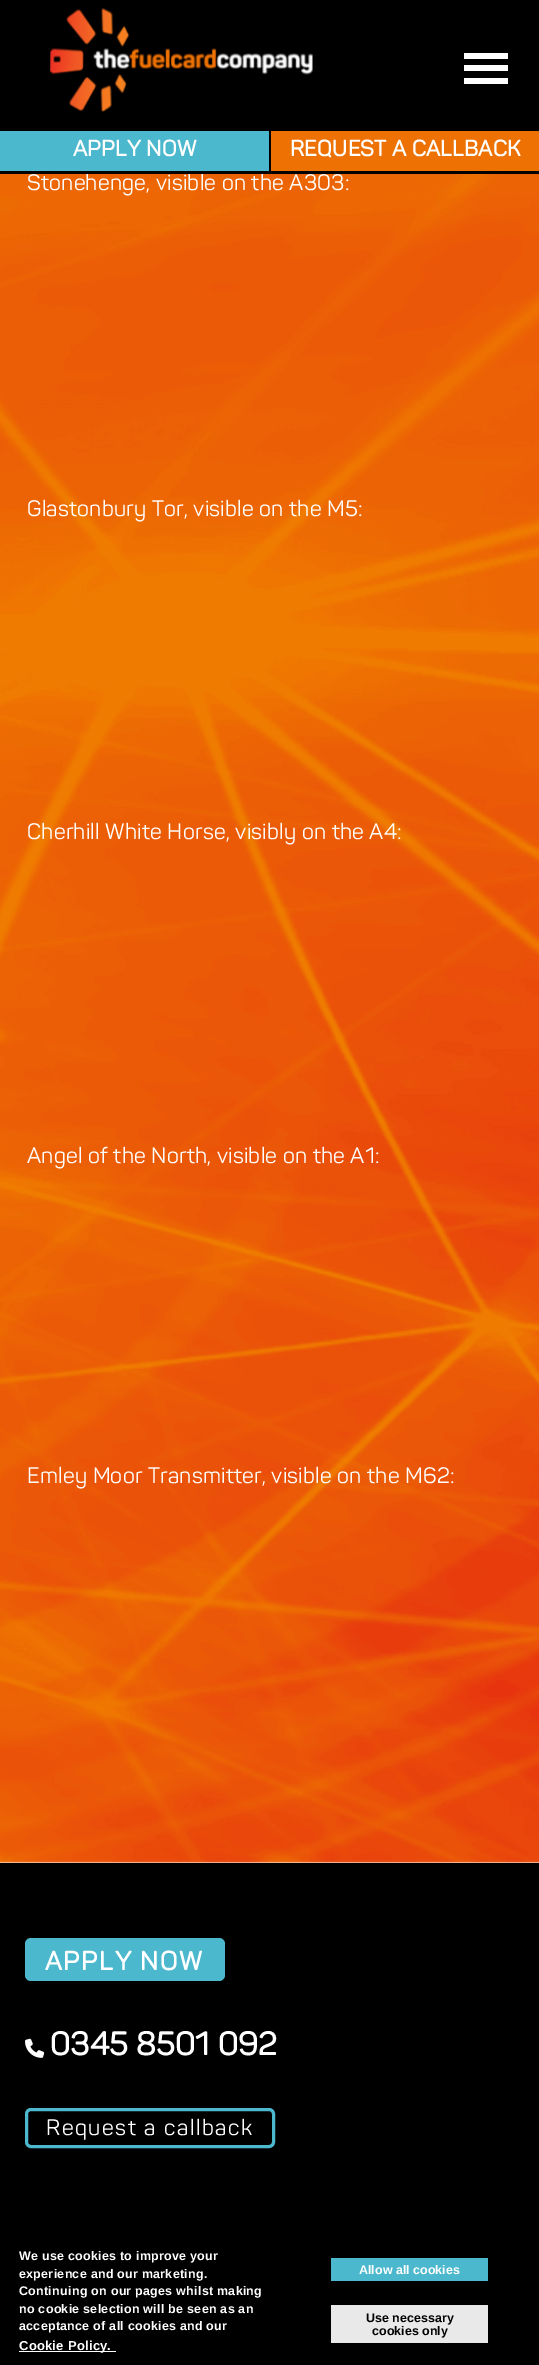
%!PS
<< /PageSize [539 2365] >> setpagedevice
/rgb { 3 { 255 div 3 1 roll } repeat setrgbcolor } def
/font { [ exch dup neg 0 0 3 -1 roll 0 0 ] selectfont } def
/text { moveto show } def
/roundrect { 5 dict begin { /r /h /w /y /x } { exch def } forall
  x r add y moveto x w add y 2 copy h add r arct x w add y h add x 1 index r arct
  x y h add x y r arct x y 2 copy exch w add exch r arct closepath end } def
/picture { 5 dict begin { /h /w /y /x /name } { exch def } forall
  gsave x y translate w h scale
  w h 8 [w 0 0 h 0 0] name (r) file false 3 colorimage grestore end } def
0 2365 translate 1 -1 scale
4 setmiterlimit
255 255 255 rgb
0 0 539 2365 rectfill
(img_02.rgb) 0 174 539 1689 picture
0 0 0 rgb
0 1863 539 502 rectfill
76 184 205 rgb
25 1938 200 43 6 roundrect fill
(img_03.rgb) 25 2038 20 20 picture
3 setlinewidth
26.5 2109.5 247 37 4.5 roundrect stroke
255 255 255 rgb
19 2351 97 1 rectfill
76 184 205 rgb
331 2258 157 23 rectfill
234 233 233 rgb
331 2305 157 38 rectfill
/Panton-Regular 22 font
255 255 255 rgb
27 190 moveto 0.25 0 (Stonehenge, visible on the A303:) ashow
0 0 0 rgb
0 0 539 174 rectfill
255 255 255 rgb
464 53 44 6 rectfill
464 78 44 6 rectfill
464 65 44 6 rectfill
(img_01.rgb) 50 8 263 104 picture
237 113 3 rgb
271 131 268 40 rectfill
/Panton-Bold 22 font
255 255 255 rgb
290 156 moveto 0.25 0 (REQUEST A CALLBACK) ashow
76 184 205 rgb
0 131 269 40 rectfill
255 255 255 rgb
73 156 moveto 0.25 0 (APPLY NOW) ashow
/Panton-Regular 22 font
27 516 moveto 0.25 0 (Glastonbury Tor, visible on the M5:) ashow
27 839 moveto 0.25 0 (Cherhill White Horse, visibly on the A4:) ashow
27 1163 moveto 0.25 0 (Angel of the North, visible on the A1:) ashow
27 1483 moveto 0.25 0 (Emley Moor Transmitter, visible on the M62:) ashow
/Panton-Bold 26 font
45 1970 moveto 1.75 0 (APPLY NOW) ashow
/Panton-Bold 32 font
50 2055 moveto 0.25 0 (0345 8501 092) ashow
/Panton-Regular 22 font
46 2135 moveto 1.6 0 (Request a callback) ashow
/LiberationSans-Bold 12.5 font
19 2260 moveto 0.25 0 (We use cookies to improve your) ashow
19 2278 moveto 0.25 0 (experience and our marketing.) ashow
19 2295 moveto 0.25 0 (Continuing on our pages whilst making) ashow
19 2313 moveto 0.25 0 (no cookie selection will be seen as an) ashow
19 2330 moveto 0.25 0 (acceptance of all cookies and our) ashow
/LiberationSans-Bold 13 font
19 2350 moveto 0.25 0 (Cookie Policy.) ashow
/LiberationSans-Bold 12.5 font
(Allow all cookies) 359 2274 text
0 0 0 rgb
(Use necessary) 366 2322 text
(cookies only) 372 2335 text
showpage
